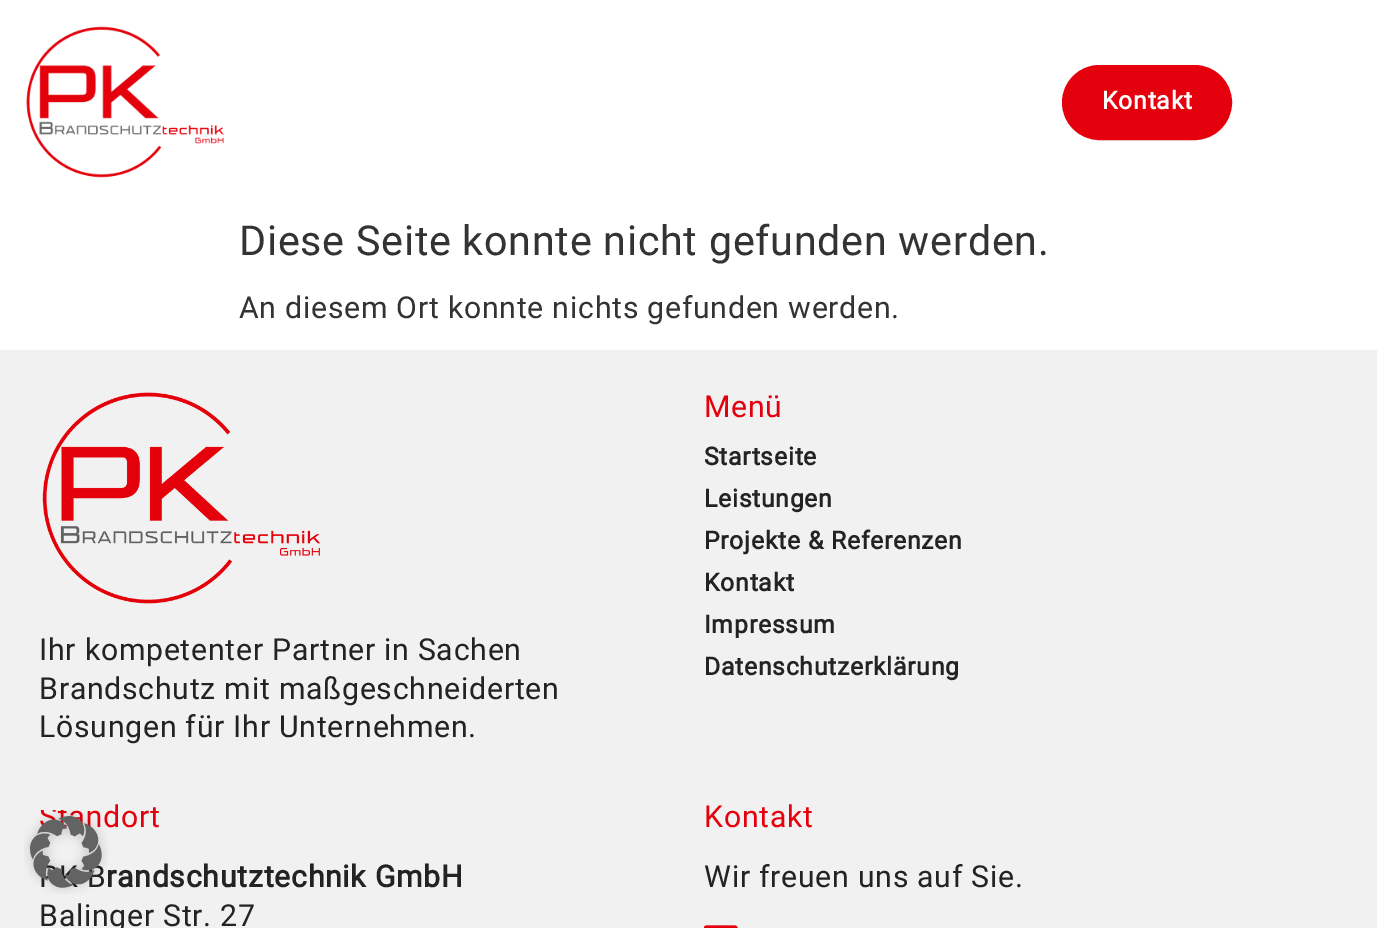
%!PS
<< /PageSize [1377 928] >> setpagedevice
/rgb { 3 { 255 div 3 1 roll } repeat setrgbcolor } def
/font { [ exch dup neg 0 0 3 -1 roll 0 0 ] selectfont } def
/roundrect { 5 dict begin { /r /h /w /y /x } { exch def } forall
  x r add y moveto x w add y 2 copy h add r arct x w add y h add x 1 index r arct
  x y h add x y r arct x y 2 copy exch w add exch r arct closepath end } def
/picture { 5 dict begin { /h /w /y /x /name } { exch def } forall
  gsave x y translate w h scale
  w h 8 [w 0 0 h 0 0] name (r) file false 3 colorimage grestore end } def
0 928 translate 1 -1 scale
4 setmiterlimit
255 255 255 rgb
0 0 1377 928 rectfill
(img_01.rgb) 26 26 198 152 picture
228 0 12 rgb
1063.5 66.5 167 72 36 roundrect gsave fill grestore
3 setlinewidth
stroke
241 241 241 rgb
0 350 1377 578 rectfill
(img_02.rgb) 42 392 279 212 picture
(img_03.rgb) 704 925 34 3 picture
/Roboto-Bold 24.75 font
255 255 255 rgb
1102 109 moveto 0.75 0 (Kontakt) ashow
/Roboto-Regular 41.3 font
51 51 51 rgb
239 255 moveto 0.75 0 (Diese Seite konnte nicht gefunden werden.) ashow
/Roboto-Regular 30.25 font
239 318 moveto 0.75 0 (An diesem Ort konnte nichts gefunden werden.) ashow
35 35 35 rgb
39 660 moveto 0.75 0 (Ihr kompetenter Partner in Sachen) ashow
39 699 moveto 0.75 0 (Brandschutz mit maßgeschneiderten) ashow
39 737 moveto 0.75 0 (Lösungen für Ihr Unternehmen.) ashow
228 0 12 rgb
704 417 moveto 0.75 0 (Menü) ashow
/Roboto-Bold 24.75 font
35 35 35 rgb
704 465 moveto 0.75 0 (Startseite) ashow
704 507 moveto 0.75 0 (Leistungen) ashow
704 549 moveto 0.75 0 (Projekte & Referenzen) ashow
704 591 moveto 0.75 0 (Kontakt) ashow
704 633 moveto 0.75 0 (Impressum) ashow
704 675 moveto 0.75 0 (Datenschutzerklärung) ashow
/Roboto-Regular 30.25 font
228 0 12 rgb
86 827 moveto 0.75 0 (ndort) ashow
/Roboto-Bold 30.25 font
35 35 35 rgb
106 887 moveto 0.75 0 (randschutztechnik GmbH) ashow
/Roboto-Regular 30.25 font
39 926 moveto 0.75 0 (Balinger Str. 27) ashow
228 0 12 rgb
704 827 moveto 0.75 0 (Kontakt) ashow
35 35 35 rgb
704 887 moveto 0.75 0 (Wir freuen uns auf Sie.) ashow
(img_04.rgb) 24 810 84 84 picture
showpage
